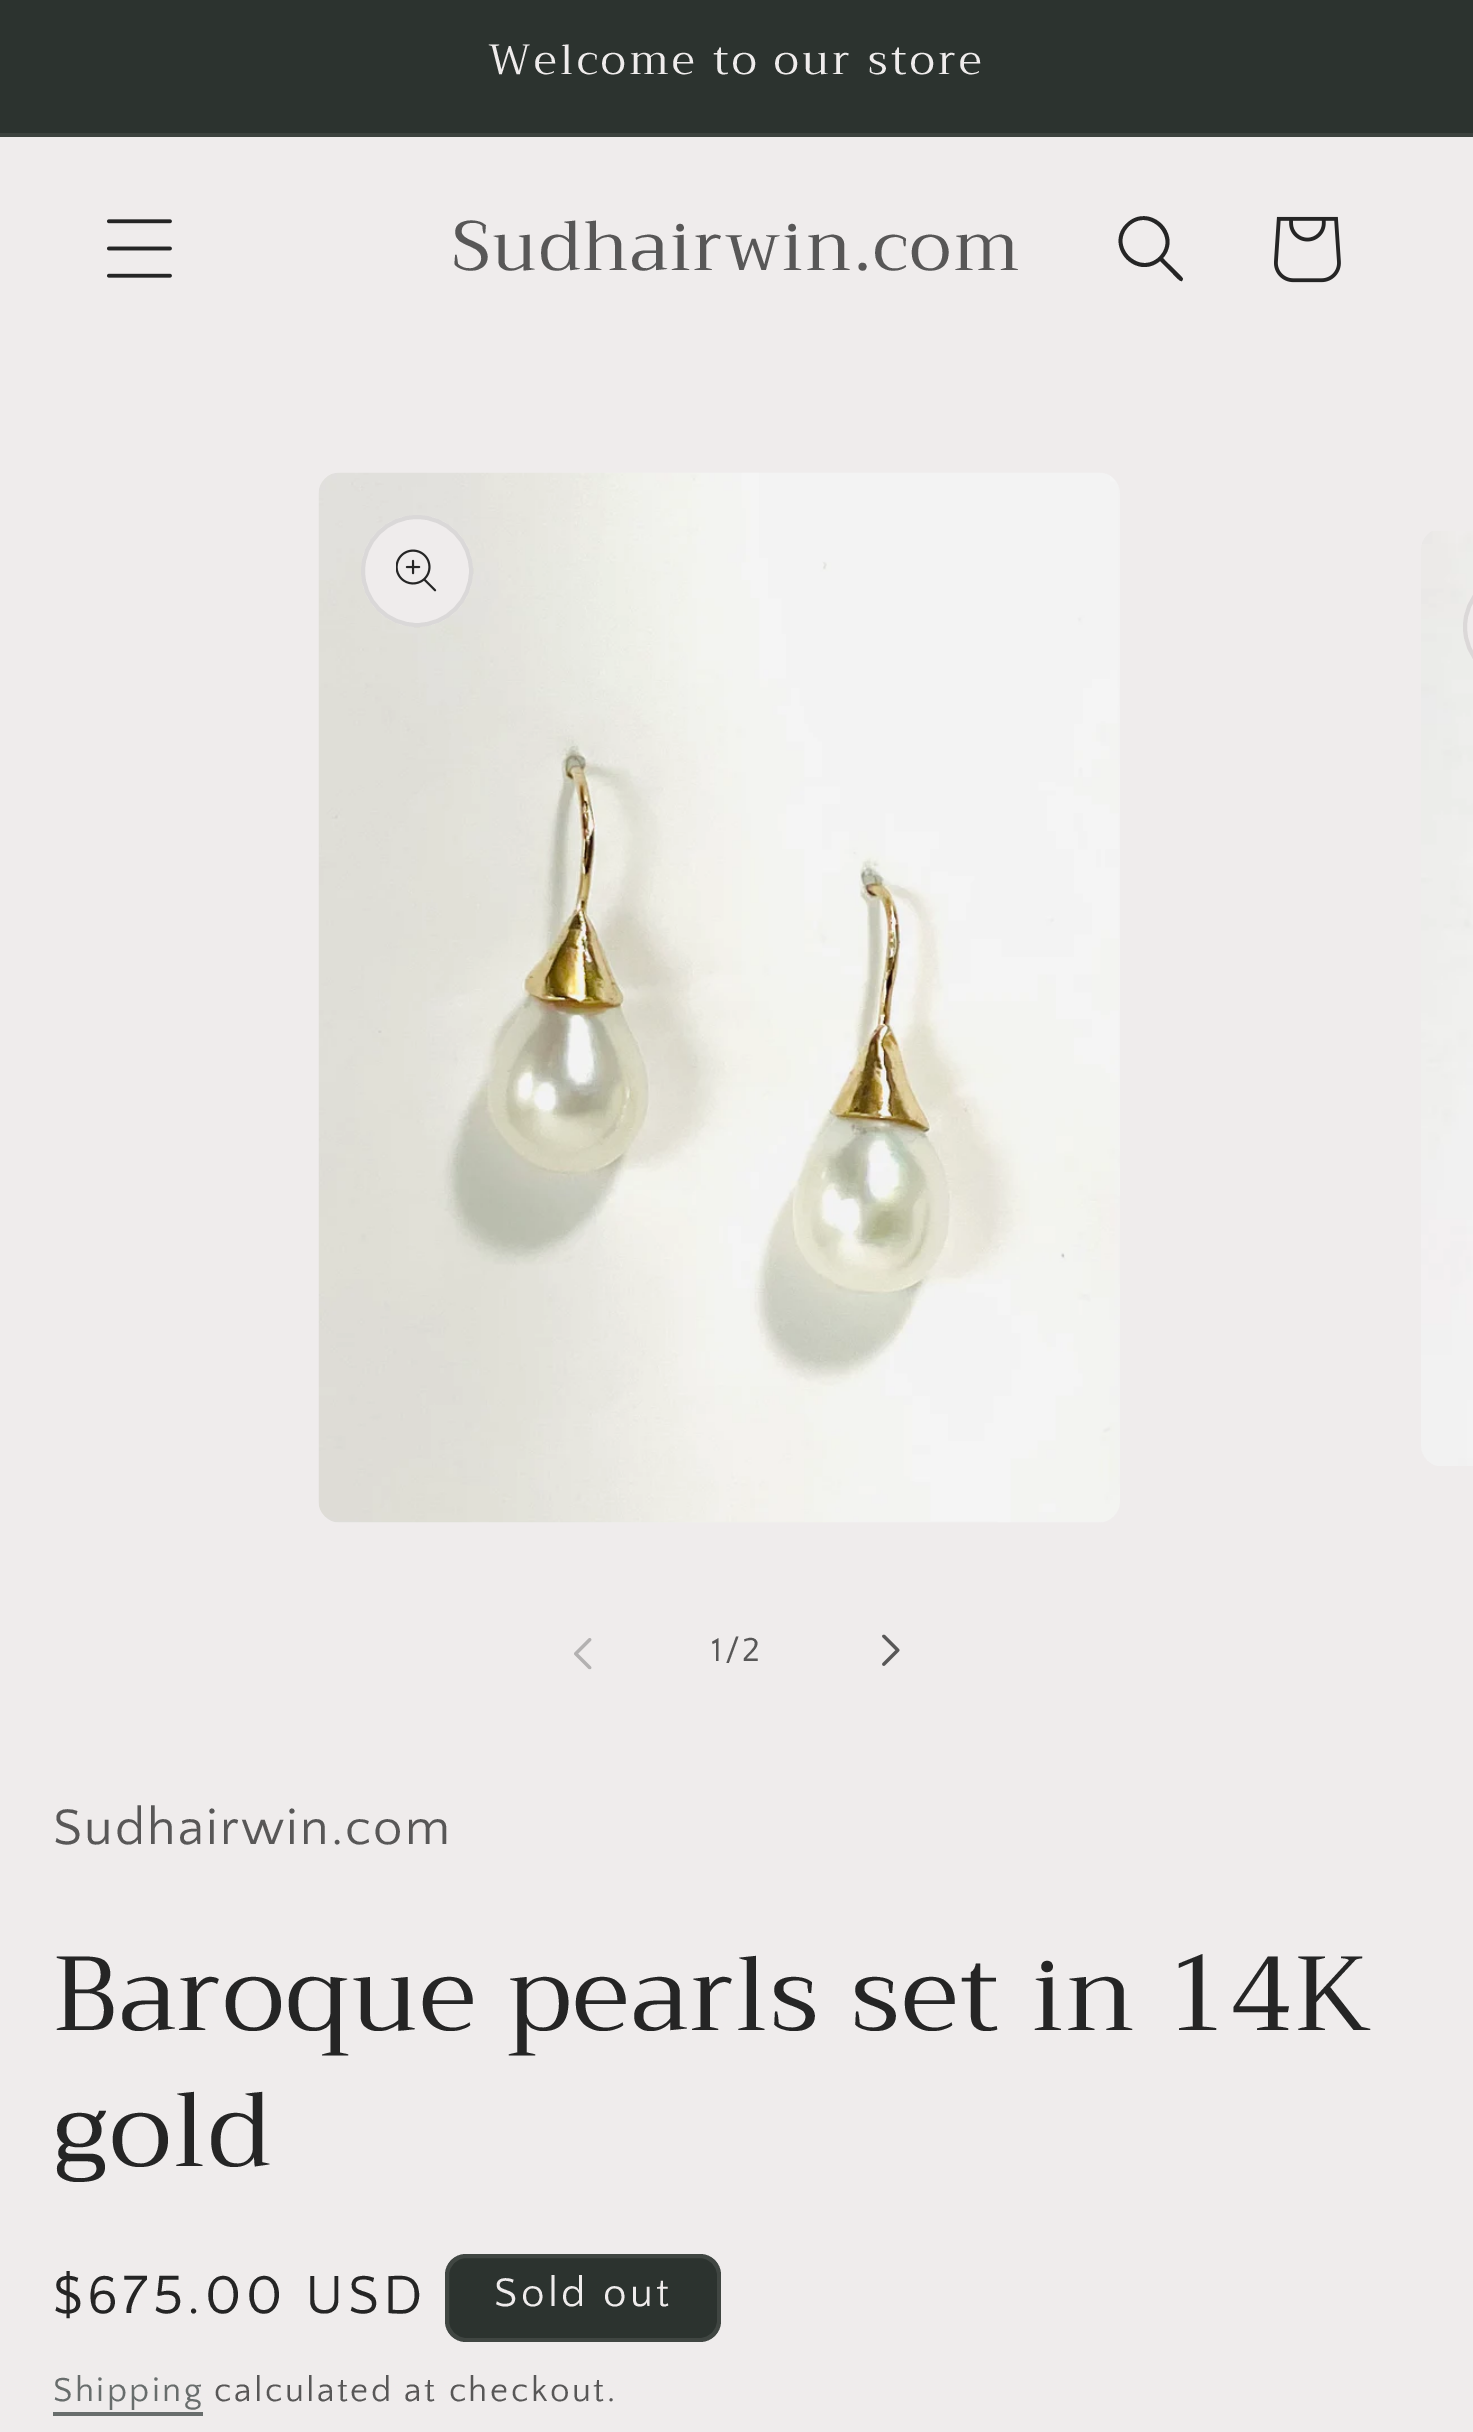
%!PS
<< /PageSize [1473 2432] /PageUsesTransparency true >> setpagedevice
/rgb { 3 { 255 div 3 1 roll } repeat setrgbcolor } def
/font { [ exch dup neg 0 0 3 -1 roll 0 0 ] selectfont } def
/alpha { dup .setfillconstantalpha .setstrokeconstantalpha } def
/circle { newpath 0 360 arc closepath } def
/roundrect { 5 dict begin { /r /h /w /y /x } { exch def } forall
  x r add y moveto x w add y 2 copy h add r arct x w add y h add x 1 index r arct
  x y h add x y r arct x y 2 copy exch w add exch r arct closepath end } def
/picture { 5 dict begin { /h /w /y /x /name } { exch def } forall
  gsave x y translate w h scale
  w h 8 [w 0 0 h 0 0] name (r) file false 3 colorimage grestore end } def
0 .pushpdf14devicefilter
0 2432 translate 1 -1 scale
4 setmiterlimit
239 236 236 rgb
0 0 1473 2432 rectfill
44 51 47 rgb
0 0 1473 133 rectfill
60 66 62 rgb
0 133 1473 4 rectfill
(img_01.rgb) 107 219 65 59 picture
37 37 37 rgb
1159 257 moveto -20 19 -50 -11 -30 -31 rcurveto 20 -19 50 11 30 31 rcurveto closepath 1160 261 moveto -24 20 -56 -15 -34 -37 rcurveto 23 -23 58 10 37 34 rcurveto 2 3 20 19 20 21 rcurveto -1 2 rlineto -2 1 -8 -6 -9 -7 rcurveto closepath eofill
(img_02.rgb) 1274 216 67 67 picture
(img_03.rgb) 318 472 802 1051 picture
239 236 236 rgb
417 571 56 circle fill
0.1 alpha
37 37 37 rgb
4 setlinewidth
417 571 54 circle stroke
1 alpha
(img_04.rgb) 396 549 41 43 picture
(img_05.rgb) 1421 531 52 935 picture
239 236 236 rgb
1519 571 moveto -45 0 rlineto 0 112 rlineto 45 0 rlineto -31 0 -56 -25 -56 -56 rcurveto 0 -31 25 -56 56 -56 rcurveto closepath fill
219 216 216 rgb
1465 573 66 108 54 roundrect stroke
(img_06.rgb) 574 1638 18 32 picture
(img_07.rgb) 882 1634 18 32 picture
44 51 47 rgb
445 2254 276 88 21 roundrect fill
0.1 alpha
239 236 236 rgb
447 2256 272 84 19 roundrect stroke
1 alpha
104 109 108 rgb
53 2412 150 4 rectfill
/Trirong-Regular 42 font
239 236 236 rgb
488 74 moveto 3.5 0 (Welcome to our store) ashow
/Trirong-Regular 70 font
88 87 87 rgb
452 270 moveto 2.1 0 (Sudhairwin.com) ashow
/QuattrocentoSans-Regular 35 font
711 1661 moveto 2.45 0 (1/2) ashow
/QuattrocentoSans-Regular 52.5 font
53 1844 moveto 2.1 0 (Sudhairwin.com) ashow
/Trirong-Regular 105 font
37 37 37 rgb
53 2030 moveto 2.1 0 (Baroque pearls set in 14K) ashow
53 2166 moveto 2.1 0 (gold) ashow
/QuattrocentoSans-Regular 56 font
53 2313 moveto 4.5 0 ($675.00 USD) ashow
/QuattrocentoSans-Regular 42 font
239 236 236 rgb
494 2306 moveto 3.5 0 (Sold out) ashow
/QuattrocentoSans-Regular 35 font
104 109 108 rgb
53 2401 moveto 2.45 0 (Shipping) ashow
88 87 87 rgb
214 2401 moveto 2.45 0 (calculated at checkout.) ashow
.poppdf14devicefilter showpage
